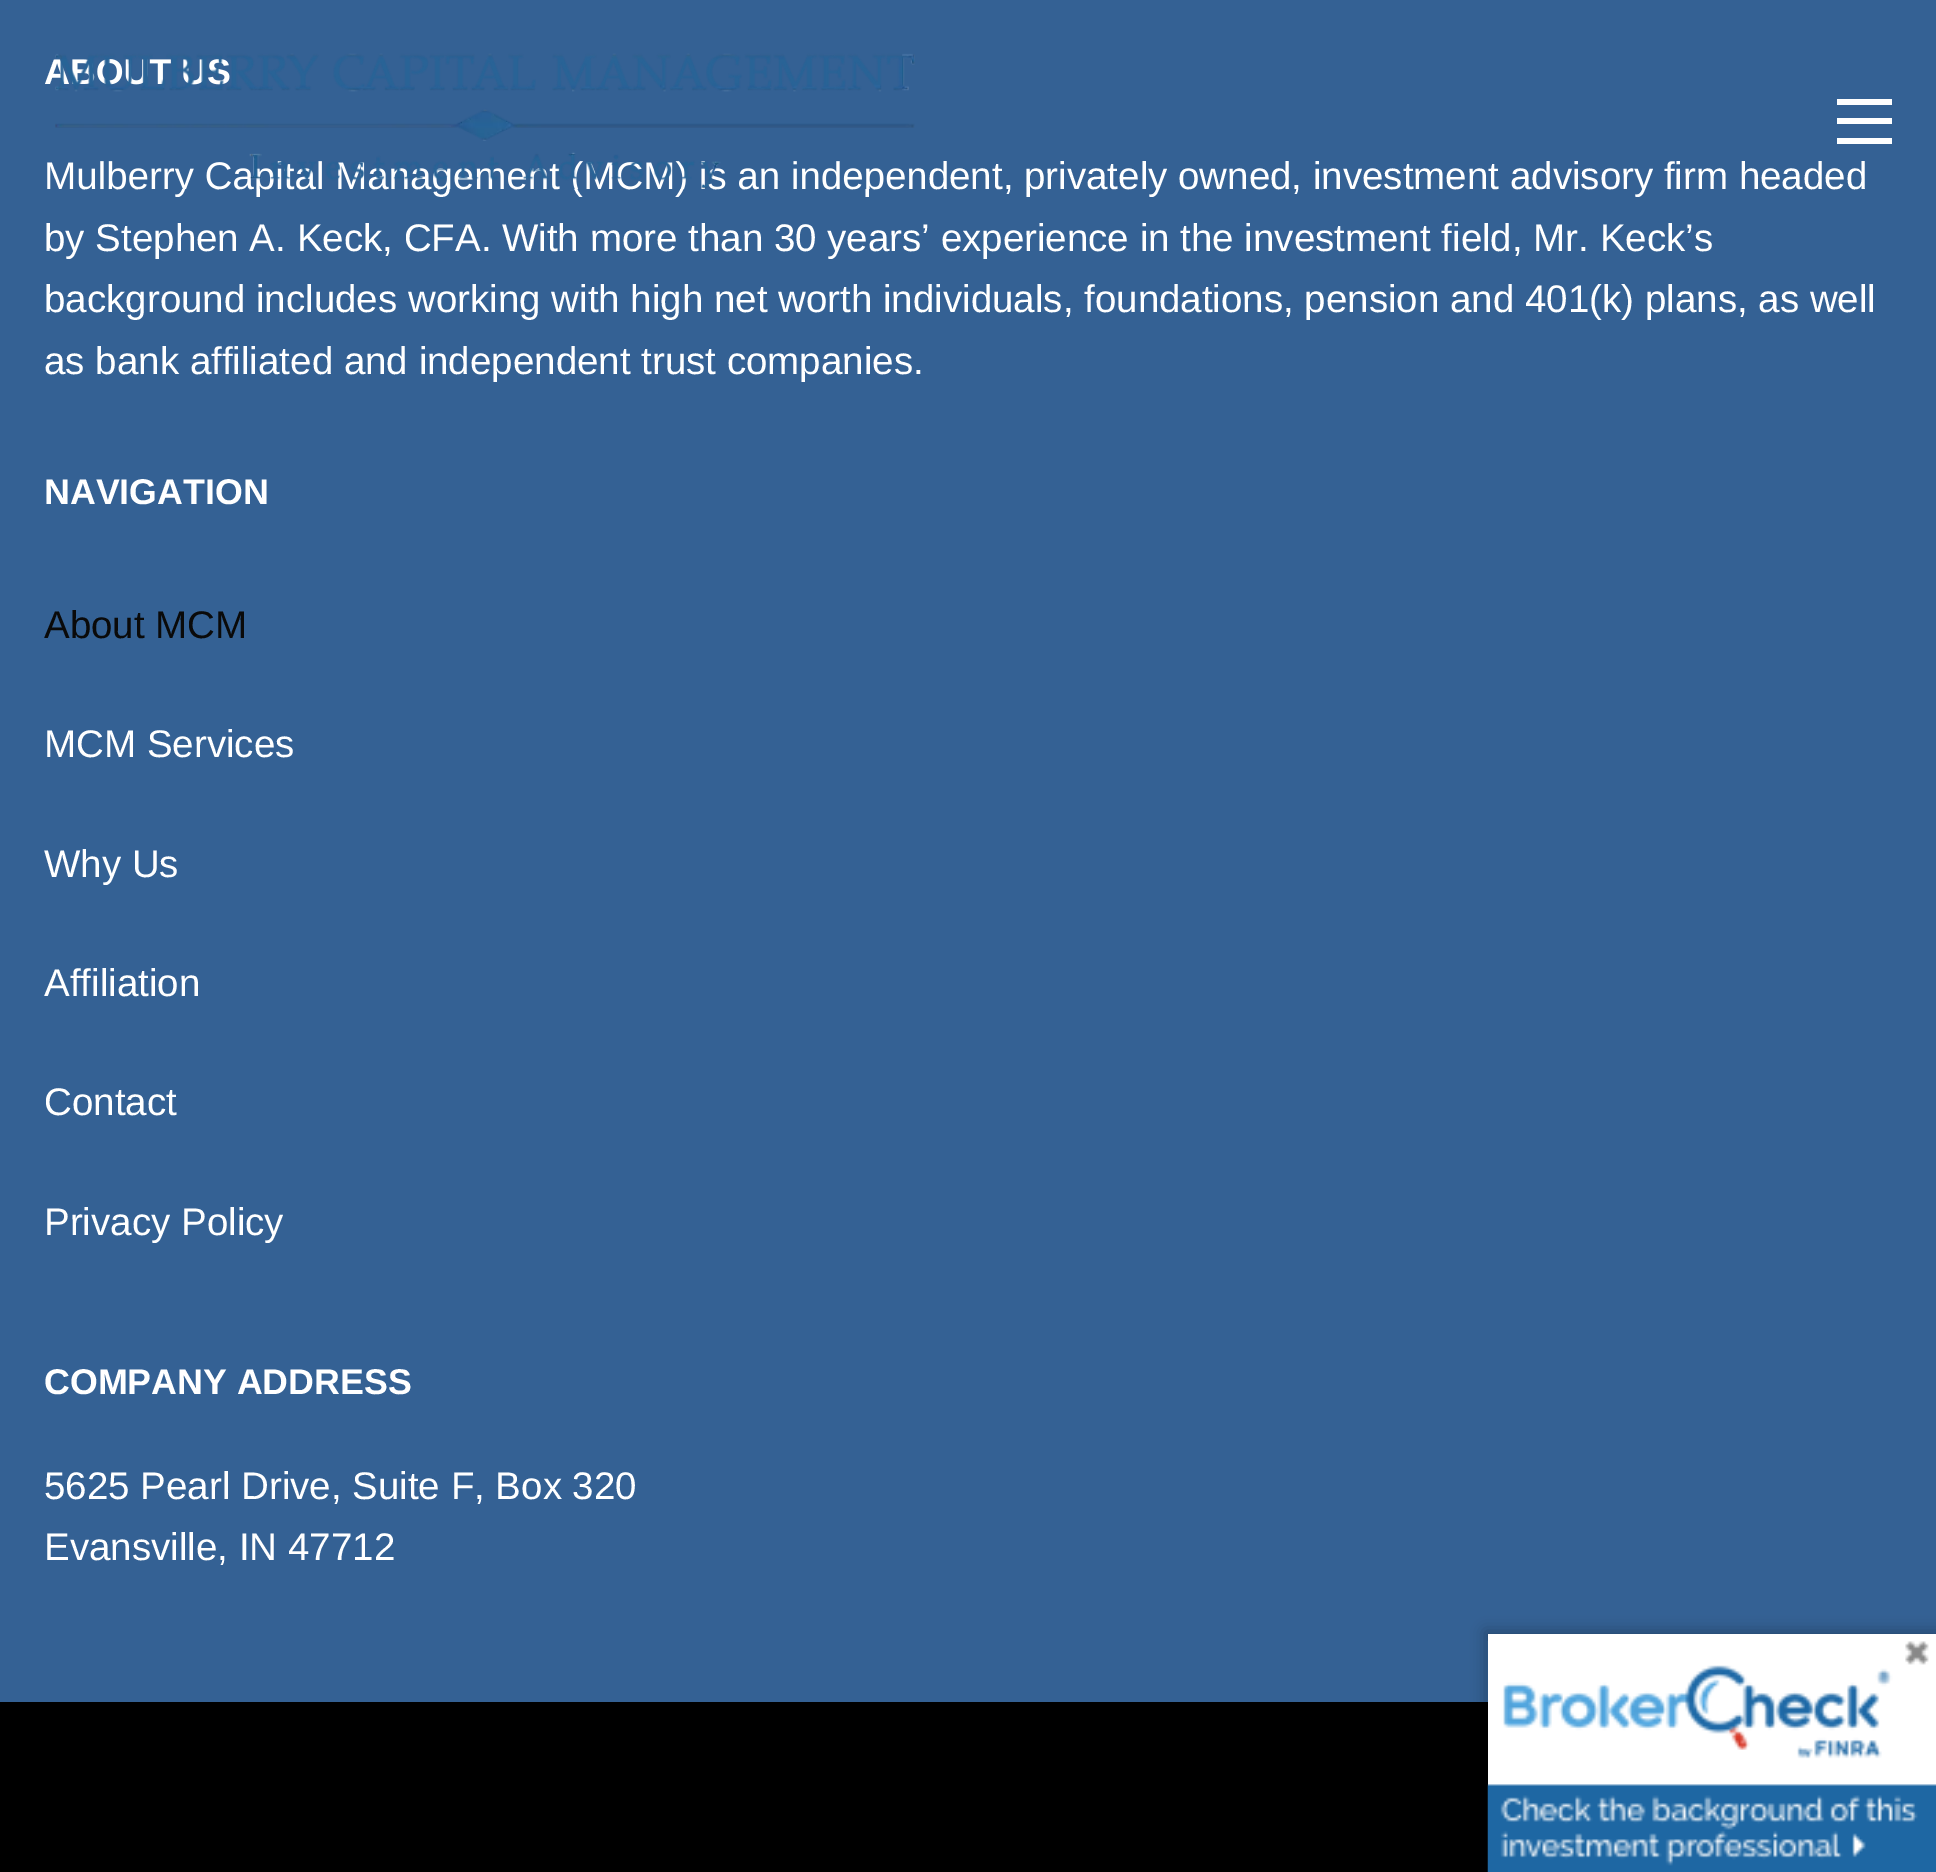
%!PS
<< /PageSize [1936 1872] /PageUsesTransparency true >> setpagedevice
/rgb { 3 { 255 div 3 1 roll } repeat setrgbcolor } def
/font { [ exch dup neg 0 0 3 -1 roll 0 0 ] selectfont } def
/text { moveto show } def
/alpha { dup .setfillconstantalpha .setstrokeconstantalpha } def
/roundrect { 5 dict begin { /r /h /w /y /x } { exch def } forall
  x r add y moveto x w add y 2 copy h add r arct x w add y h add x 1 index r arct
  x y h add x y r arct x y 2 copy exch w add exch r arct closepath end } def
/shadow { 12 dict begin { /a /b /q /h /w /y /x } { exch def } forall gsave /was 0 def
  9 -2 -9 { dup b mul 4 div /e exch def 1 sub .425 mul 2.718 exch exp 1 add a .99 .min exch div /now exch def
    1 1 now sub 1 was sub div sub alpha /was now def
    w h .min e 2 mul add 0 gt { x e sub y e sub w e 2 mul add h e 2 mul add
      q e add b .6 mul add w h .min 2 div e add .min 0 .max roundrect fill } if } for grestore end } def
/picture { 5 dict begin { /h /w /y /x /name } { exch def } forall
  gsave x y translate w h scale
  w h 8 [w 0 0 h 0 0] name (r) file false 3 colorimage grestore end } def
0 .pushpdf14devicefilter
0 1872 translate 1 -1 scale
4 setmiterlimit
52 97 148 rgb
0 0 1936 1872 rectfill
254 254 254 rgb
1837 138 55 6 rectfill
1837 118 55 6 rectfill
1837 99 55 6 rectfill
0 0 0 rgb
0 1702 1488 170 rectfill
255 255 255 rgb
1488 1634 448 152 rectfill
gsave
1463 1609 moveto 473 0 rlineto 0 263 rlineto -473 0 rlineto closepath 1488 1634 moveto 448 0 rlineto 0 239 rlineto -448 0 rlineto closepath eoclip newpath
0 0 0 rgb
1485 1631 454 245 0 7 0.25 shadow
grestore
(img_02.rgb) 1487 1641 449 231 picture
/LiberationSans-Bold 35.75 font
(ABOUT US) 44 84 text
/LiberationSans-Regular 38.5 font
(Mulberry Capital Management \(MCM\) is an independent, privately owned, investment advisory firm headed) 44 189 text
(img_01.rgb) 55 53 860 136 picture
(by Stephen A. Keck, CFA. With more than 30 years’ experience in the investment field, Mr. Keck’s) 44 251 text
(background includes working with high net worth individuals, foundations, pension and 401\(k\) plans, as well) 44 312 text
(as bank affiliated and independent trust companies.) 44 374 text
/LiberationSans-Bold 35.75 font
(NAVIGATION) 44 504 text
/LiberationSans-Regular 38.5 font
10 10 10 rgb
(About MCM) 44 638 text
255 255 255 rgb
(MCM Services) 44 757 text
(Why Us) 44 877 text
(Affiliation) 44 996 text
(Contact) 44 1115 text
(Privacy Policy) 44 1235 text
/LiberationSans-Bold 35.75 font
(COMPANY ADDRESS) 44 1394 text
/LiberationSans-Regular 38.5 font
(5625 Pearl Drive, Suite F, Box 320) 44 1499 text
(Evansville, IN 47712) 44 1560 text
.poppdf14devicefilter showpage
